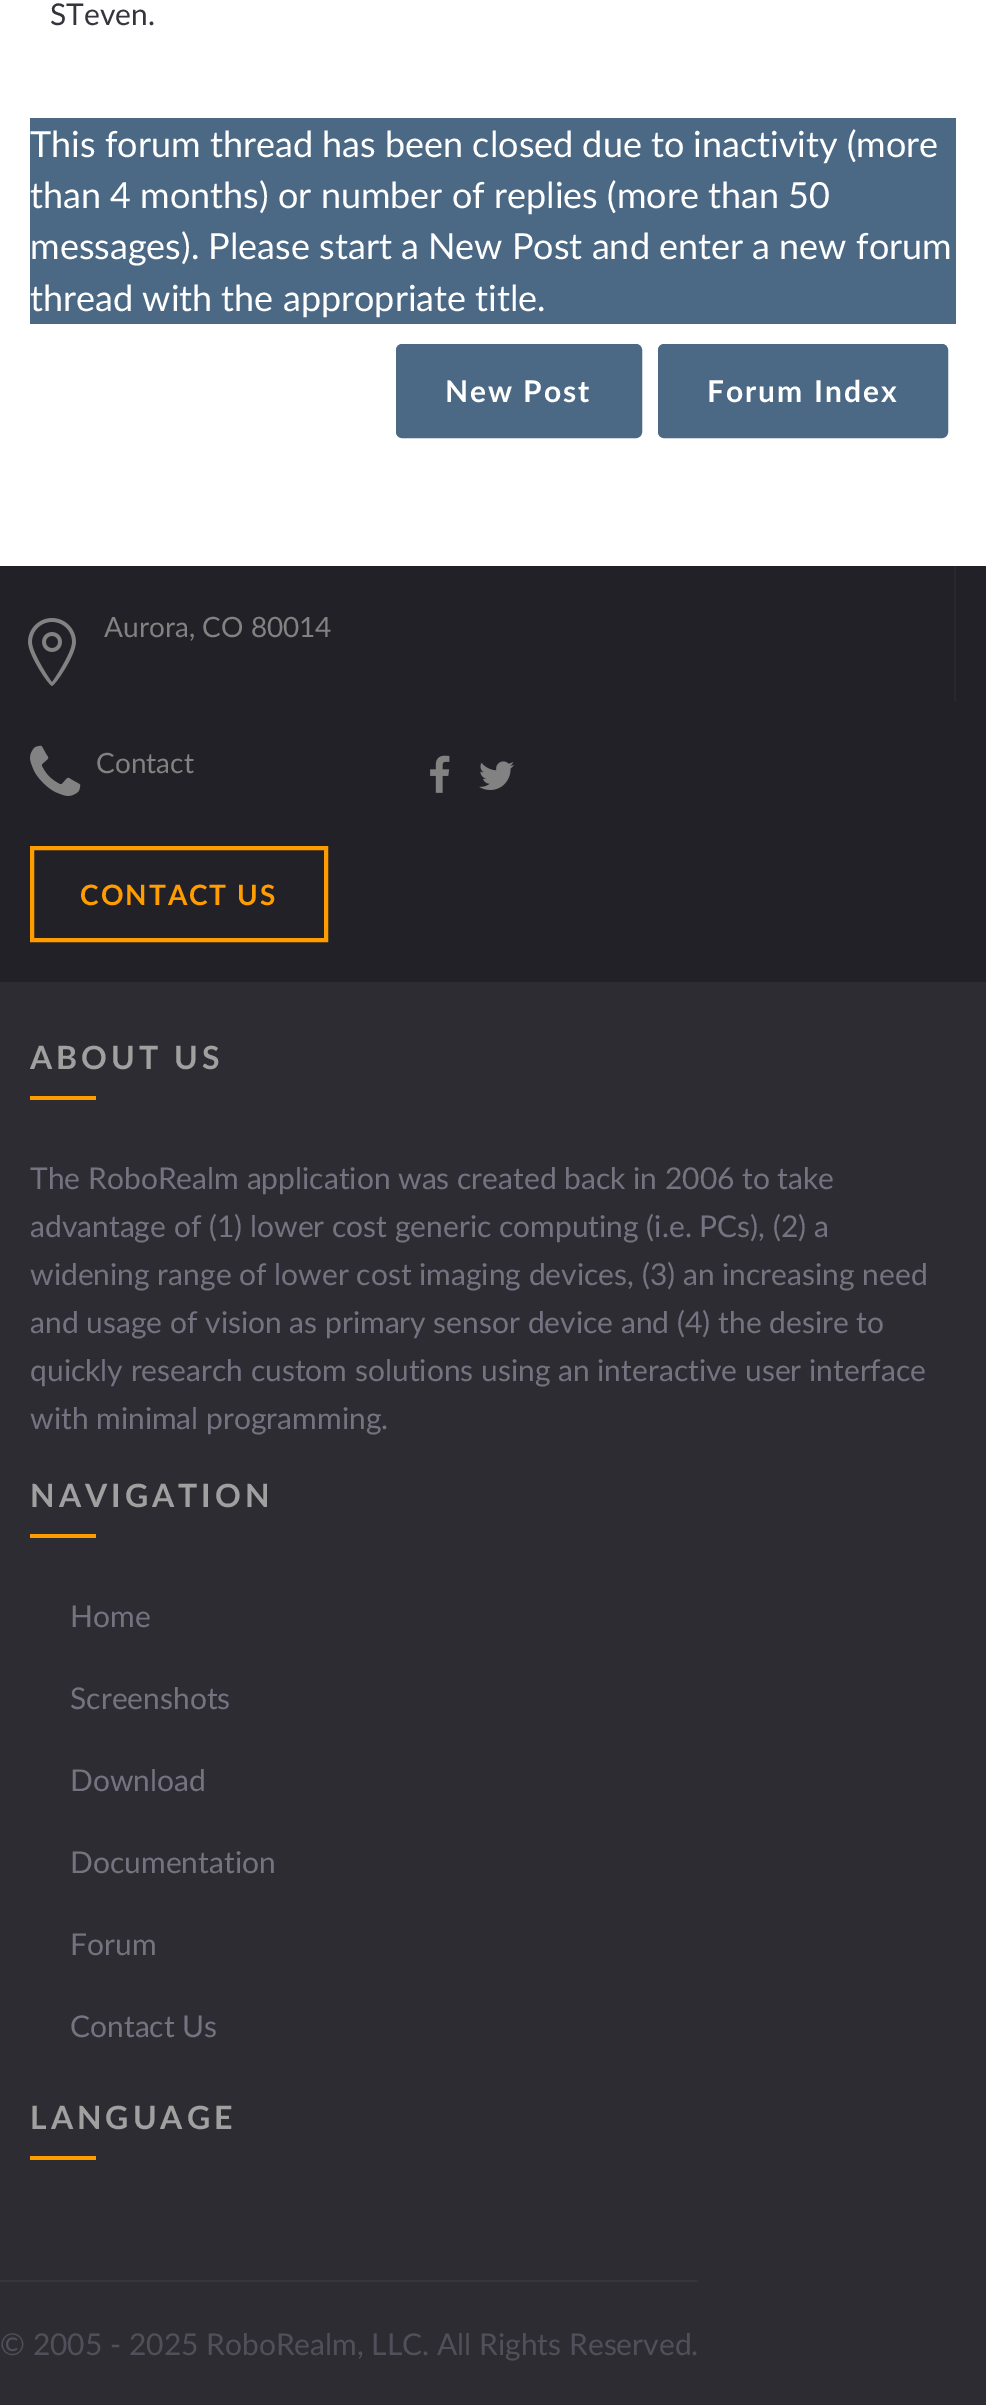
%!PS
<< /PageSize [986 2405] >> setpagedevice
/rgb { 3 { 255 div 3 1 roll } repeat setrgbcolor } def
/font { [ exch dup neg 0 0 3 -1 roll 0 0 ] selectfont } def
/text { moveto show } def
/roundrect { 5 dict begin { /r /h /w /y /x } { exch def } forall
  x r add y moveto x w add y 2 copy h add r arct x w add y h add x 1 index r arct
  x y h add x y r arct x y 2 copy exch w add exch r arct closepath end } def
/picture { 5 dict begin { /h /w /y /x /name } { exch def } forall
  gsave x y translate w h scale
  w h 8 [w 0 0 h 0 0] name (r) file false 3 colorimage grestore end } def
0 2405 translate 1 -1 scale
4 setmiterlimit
255 255 255 rgb
0 0 986 2405 rectfill
75 105 133 rgb
30 118 926 206 rectfill
397 345 244 92 5 roundrect gsave fill grestore
2 setlinewidth
stroke
659 345 288 92 5 roundrect gsave fill grestore
stroke
45 44 50 rgb
0 982 986 1423 rectfill
34 33 39 rgb
0 566 986 416 rectfill
40 39 45 rgb
954 566 2 136 rectfill
(img_01.rgb) 28 618 48 68 picture
(img_02.rgb) 30 745 51 51 picture
(img_03.rgb) 430 755 20 38 picture
(img_04.rgb) 479 761 35 29 picture
255 156 0 rgb
4 setlinewidth
32 848 294 92 rectstroke
30 1096 66 4 rectfill
30 1534 66 4 rectfill
30 2156 66 4 rectfill
54 53 57 rgb
0 2280 698 2 rectfill
/Lato-Regular 30 font
52 52 61 rgb
(STeven.) 50 25 text
/Lato-Regular 36 font
255 255 255 rgb
(This forum thread has been closed due to inactivity \(more) 30 157 text
(than 4 months\) or number of replies \(more than 50) 30 208 text
(messages\). Please start a New Post and enter a new forum) 30 259 text
(thread with the appropriate title.) 30 311 text
/Lato-Bold 30 font
445 402 moveto 2 0 (New Post) ashow
707 402 moveto 2 0 (Forum Index) ashow
/Lato-Regular 28 font
130 130 130 rgb
(Aurora, CO 80014) 104 637 text
(Contact) 96 773 text
/Lato-Bold 28 font
255 156 0 rgb
80 905 moveto 2 0 (CONTACT US) ashow
/Lato-Bold 32 font
160 160 160 rgb
30 1069 moveto 4 0 (ABOUT US) ashow
/Lato-Regular 30 font
118 115 129 rgb
(The RoboRealm application was created back in 2006 to take) 30 1189 text
(advantage of \(1\) lower cost generic computing \(i.e. PCs\), \(2\) a) 30 1237 text
(widening range of lower cost imaging devices, \(3\) an increasing need) 30 1285 text
(and usage of vision as primary sensor device and \(4\) the desire to) 30 1333 text
(quickly research custom solutions using an interactive user interface) 30 1381 text
(with minimal programming.) 30 1429 text
/Lato-Bold 32 font
160 160 160 rgb
30 1507 moveto 4 0 (NAVIGATION) ashow
/Lato-Regular 30 font
118 115 129 rgb
(Home) 70 1627 text
(Screenshots) 70 1709 text
(Download) 70 1791 text
(Documentation) 70 1873 text
(Forum) 70 1955 text
(Contact Us) 70 2037 text
/Lato-Bold 32 font
160 160 160 rgb
30 2129 moveto 4 0 (LANGUAGE) ashow
/Lato-Regular 30 font
81 80 90 rgb
(© 2005 - 2025 RoboRealm, LLC. All Rights Reserved.) 0 2355 text
showpage
